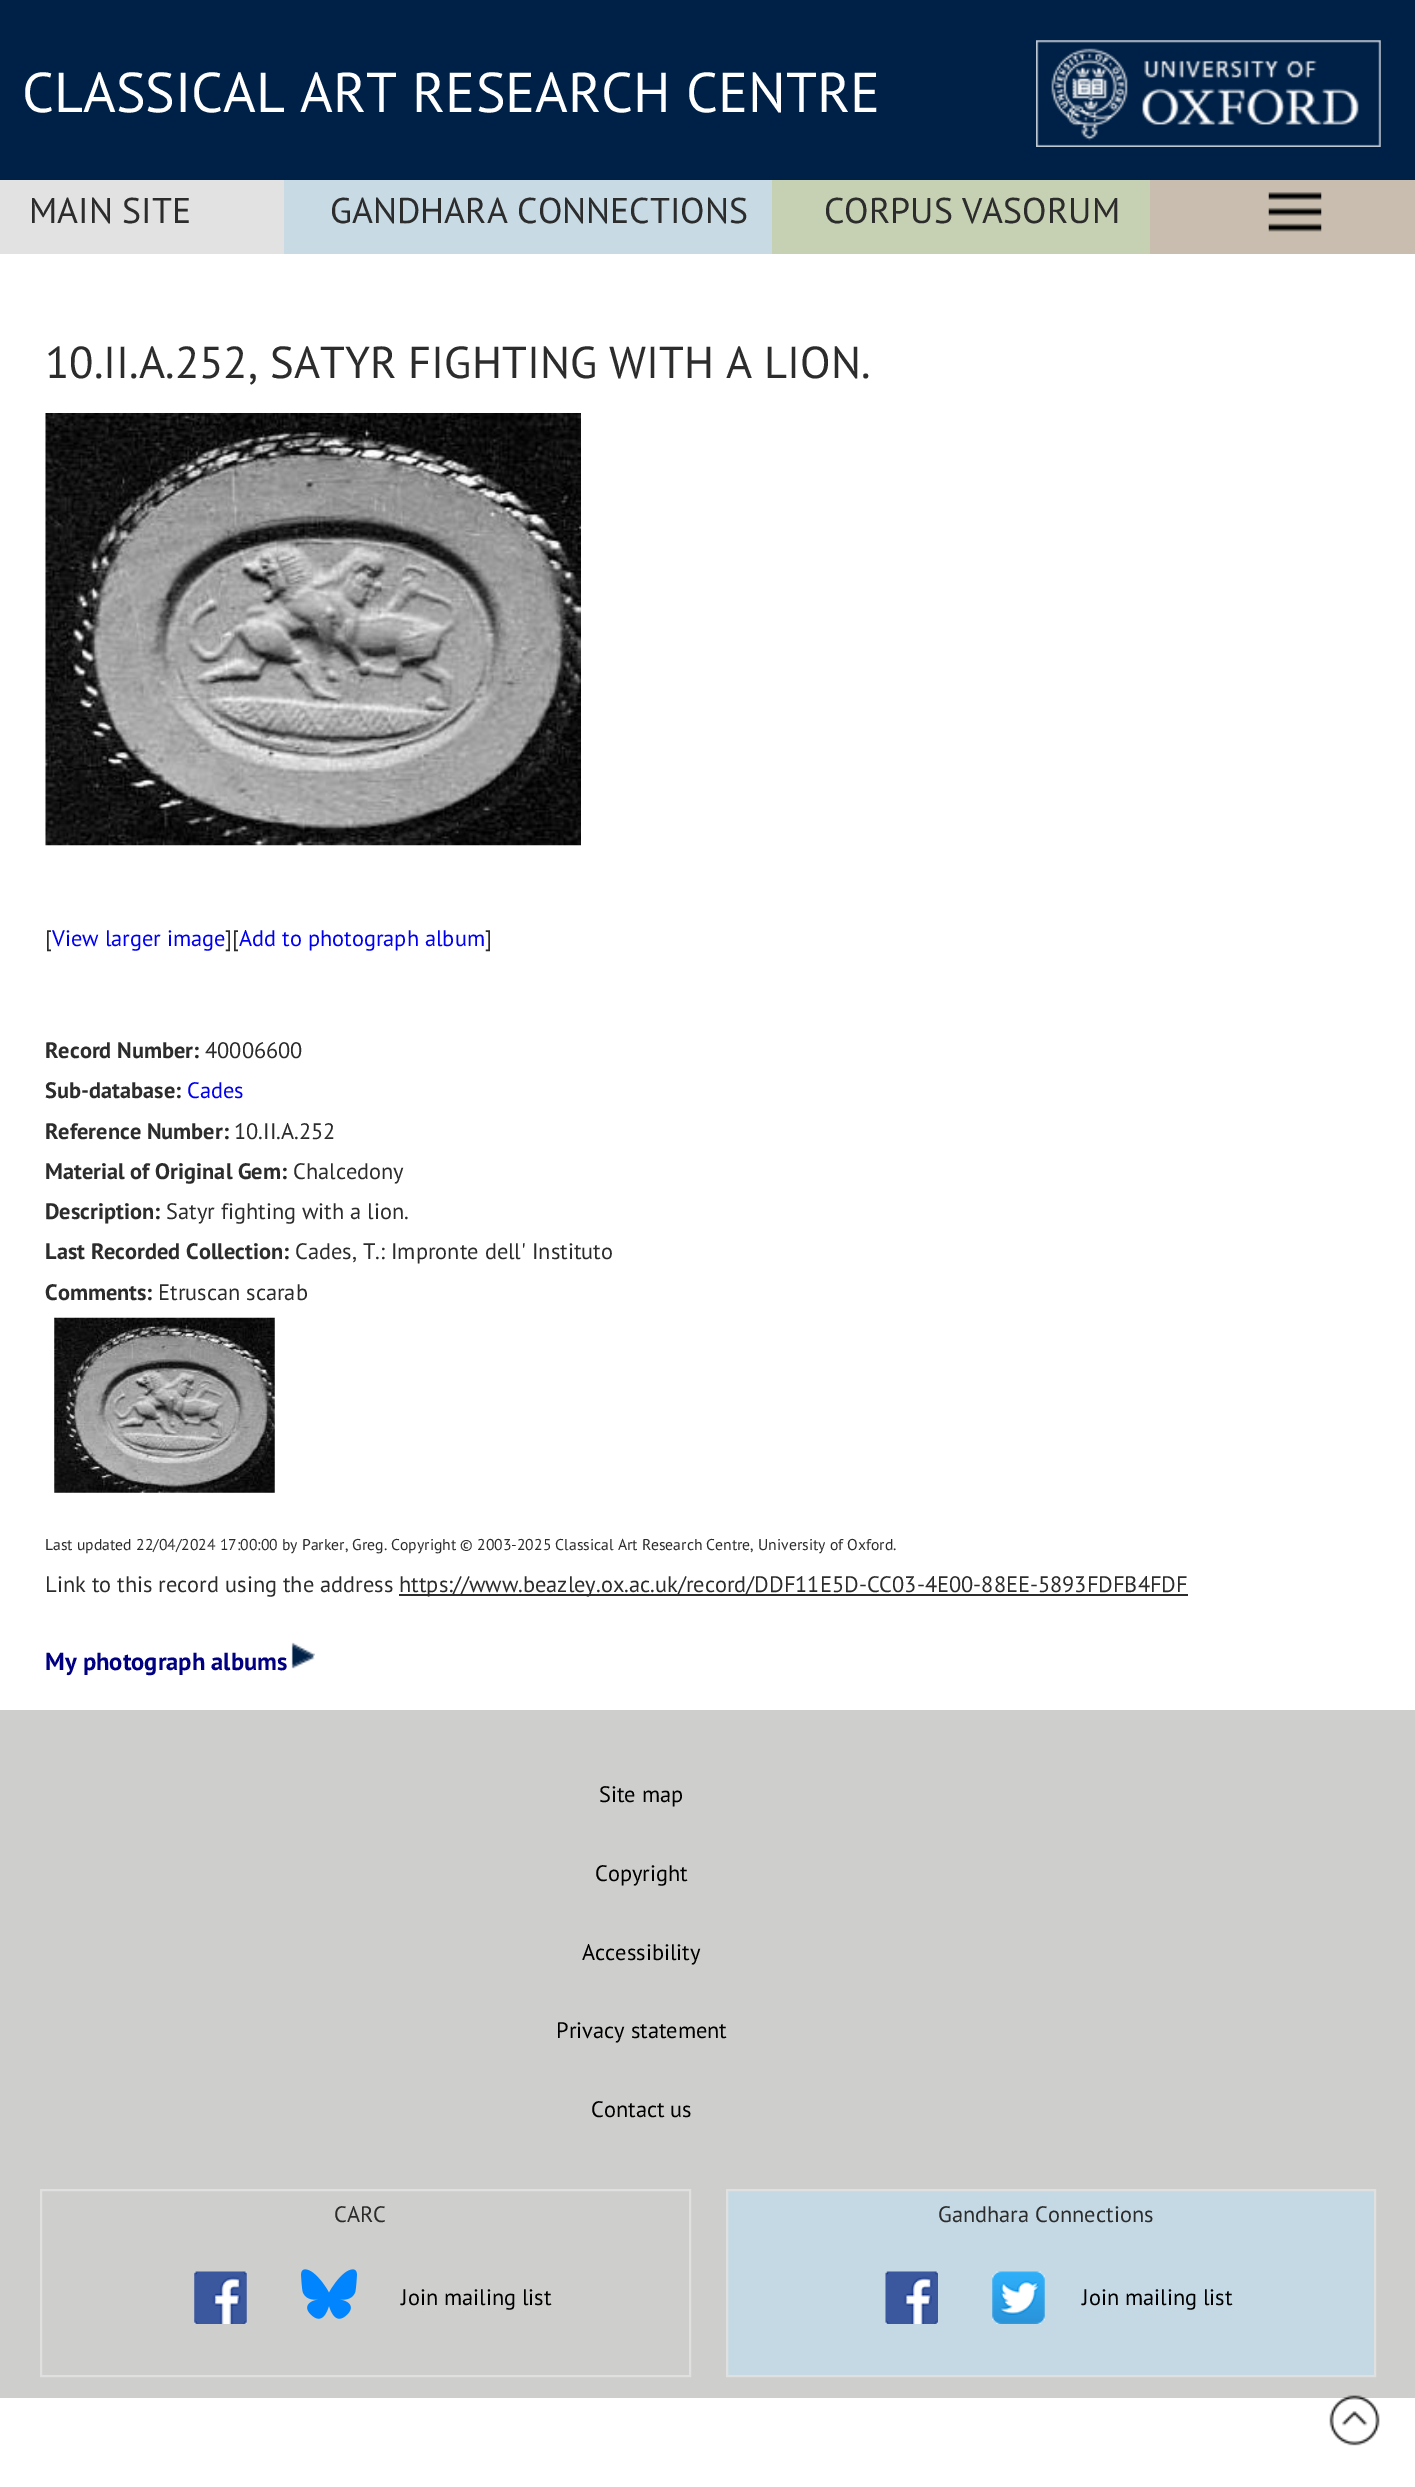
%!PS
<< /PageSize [1415 2487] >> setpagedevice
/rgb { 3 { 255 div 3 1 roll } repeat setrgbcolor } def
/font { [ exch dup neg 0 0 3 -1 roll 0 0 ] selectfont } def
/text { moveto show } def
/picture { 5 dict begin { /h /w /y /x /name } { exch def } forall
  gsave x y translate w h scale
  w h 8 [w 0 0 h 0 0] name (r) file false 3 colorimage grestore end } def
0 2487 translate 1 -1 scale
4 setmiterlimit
255 255 255 rgb
0 0 1415 2487 rectfill
0 33 71 rgb
0 0 1415 180 rectfill
(img_01.rgb) 1036 40 345 107 picture
226 226 226 rgb
0 180 284 74 rectfill
200 219 229 rgb
284 180 488 74 rectfill
197 209 178 rgb
772 180 378 74 rectfill
200 189 174 rgb
1150 180 265 74 rectfill
(img_02.rgb) 1268 192 54 40 picture
(img_03.rgb) 45 413 536 433 picture
(img_04.rgb) 54 1317 221 176 picture
44 44 44 rgb
399 1594 789 2 rectfill
(img_05.rgb) 291 1642 24 27 picture
206 206 204 rgb
0 1710 1415 688 rectfill
224 224 224 rgb
2 setlinewidth
41 2190 649 186 rectstroke
(img_06.rgb) 194 2271 53 53 picture
(img_07.rgb) 301 2269 56 50 picture
197 217 228 rgb
727 2190 moveto 648 0 rlineto 0 186 rlineto -648 0 rlineto closepath gsave fill grestore
224 224 224 rgb
stroke
(img_08.rgb) 885 2271 53 53 picture
(img_09.rgb) 992 2271 53 53 picture
(img_10.rgb) 1329 2395 51 51 picture
/PTSans-Regular 56 font
255 255 255 rgb
(CLASSICAL ART RESEARCH CENTRE) 22 112 text
/PTSans-Regular 35.8 font
44 44 44 rgb
(MAIN SITE) 29 223 text
(GANDHARA CONNECTIONS) 330 223 text
(CORPUS VASORUM) 824 223 text
/PTSans-Regular 44.75 font
(10.II.A.252, SATYR FIGHTING WITH A LION.) 45 378 text
/PTSans-Regular 22.4 font
([) 45 946 text
0 0 238 rgb
(View larger image) 52 946 text
44 44 44 rgb
(][) 225 946 text
0 0 238 rgb
(Add to photograph album) 239 946 text
44 44 44 rgb
(]) 485 946 text
/PTSans-Bold 22.4 font
(Record Number:) 45 1058 text
/PTSans-Regular 22.4 font
(40006600) 205 1058 text
/PTSans-Bold 22.4 font
(Sub-database:) 45 1098 text
/PTSans-Regular 22.4 font
0 0 238 rgb
(Cades) 187 1098 text
/PTSans-Bold 22.4 font
44 44 44 rgb
(Reference Number:) 45 1139 text
/PTSans-Regular 22.4 font
(10.II.A.252) 234 1139 text
/PTSans-Bold 22.4 font
(Material of Original Gem:) 45 1179 text
/PTSans-Regular 22.4 font
(Chalcedony) 293 1179 text
/PTSans-Bold 22.4 font
(Description:) 45 1219 text
/PTSans-Regular 22.4 font
(Satyr fighting with a lion.) 166 1219 text
/PTSans-Bold 22.4 font
(Last Recorded Collection:) 45 1259 text
/PTSans-Regular 22.4 font
(Cades, T.: Impronte dell' Instituto) 295 1259 text
/PTSans-Bold 22.4 font
(Comments:) 45 1300 text
/PTSans-Regular 22.4 font
(Etruscan scarab) 158 1300 text
/PTSans-Regular 15.68 font
(Last updated 22/04/2024 17:00:00 by Parker, Greg. Copyright © 2003-2025 Classical Art Research Centre, University of Oxford.) 45 1550 text
/PTSans-Regular 22.4 font
(Link to this record using the address) 45 1592 text
(https://www.beazley.ox.ac.uk/record/DDF11E5D-CC03-4E00-88EE-5893FDFB4FDF) 399 1592 text
/PTSans-Bold 24.6 font
0 0 128 rgb
(My photograph albums) 45 1670 text
/PTSans-Regular 22.4 font
0 0 0 rgb
(Site map) 599 1802 text
(Copyright) 595 1881 text
(Accessibility) 582 1960 text
(Privacy statement) 556 2038 text
(Contact us) 591 2117 text
44 44 44 rgb
(CARC) 334 2222 text
0 0 0 rgb
(Join mailing list) 401 2305 text
44 44 44 rgb
(Gandhara Connections) 938 2222 text
0 0 0 rgb
(Join mailing list) 1082 2305 text
showpage
